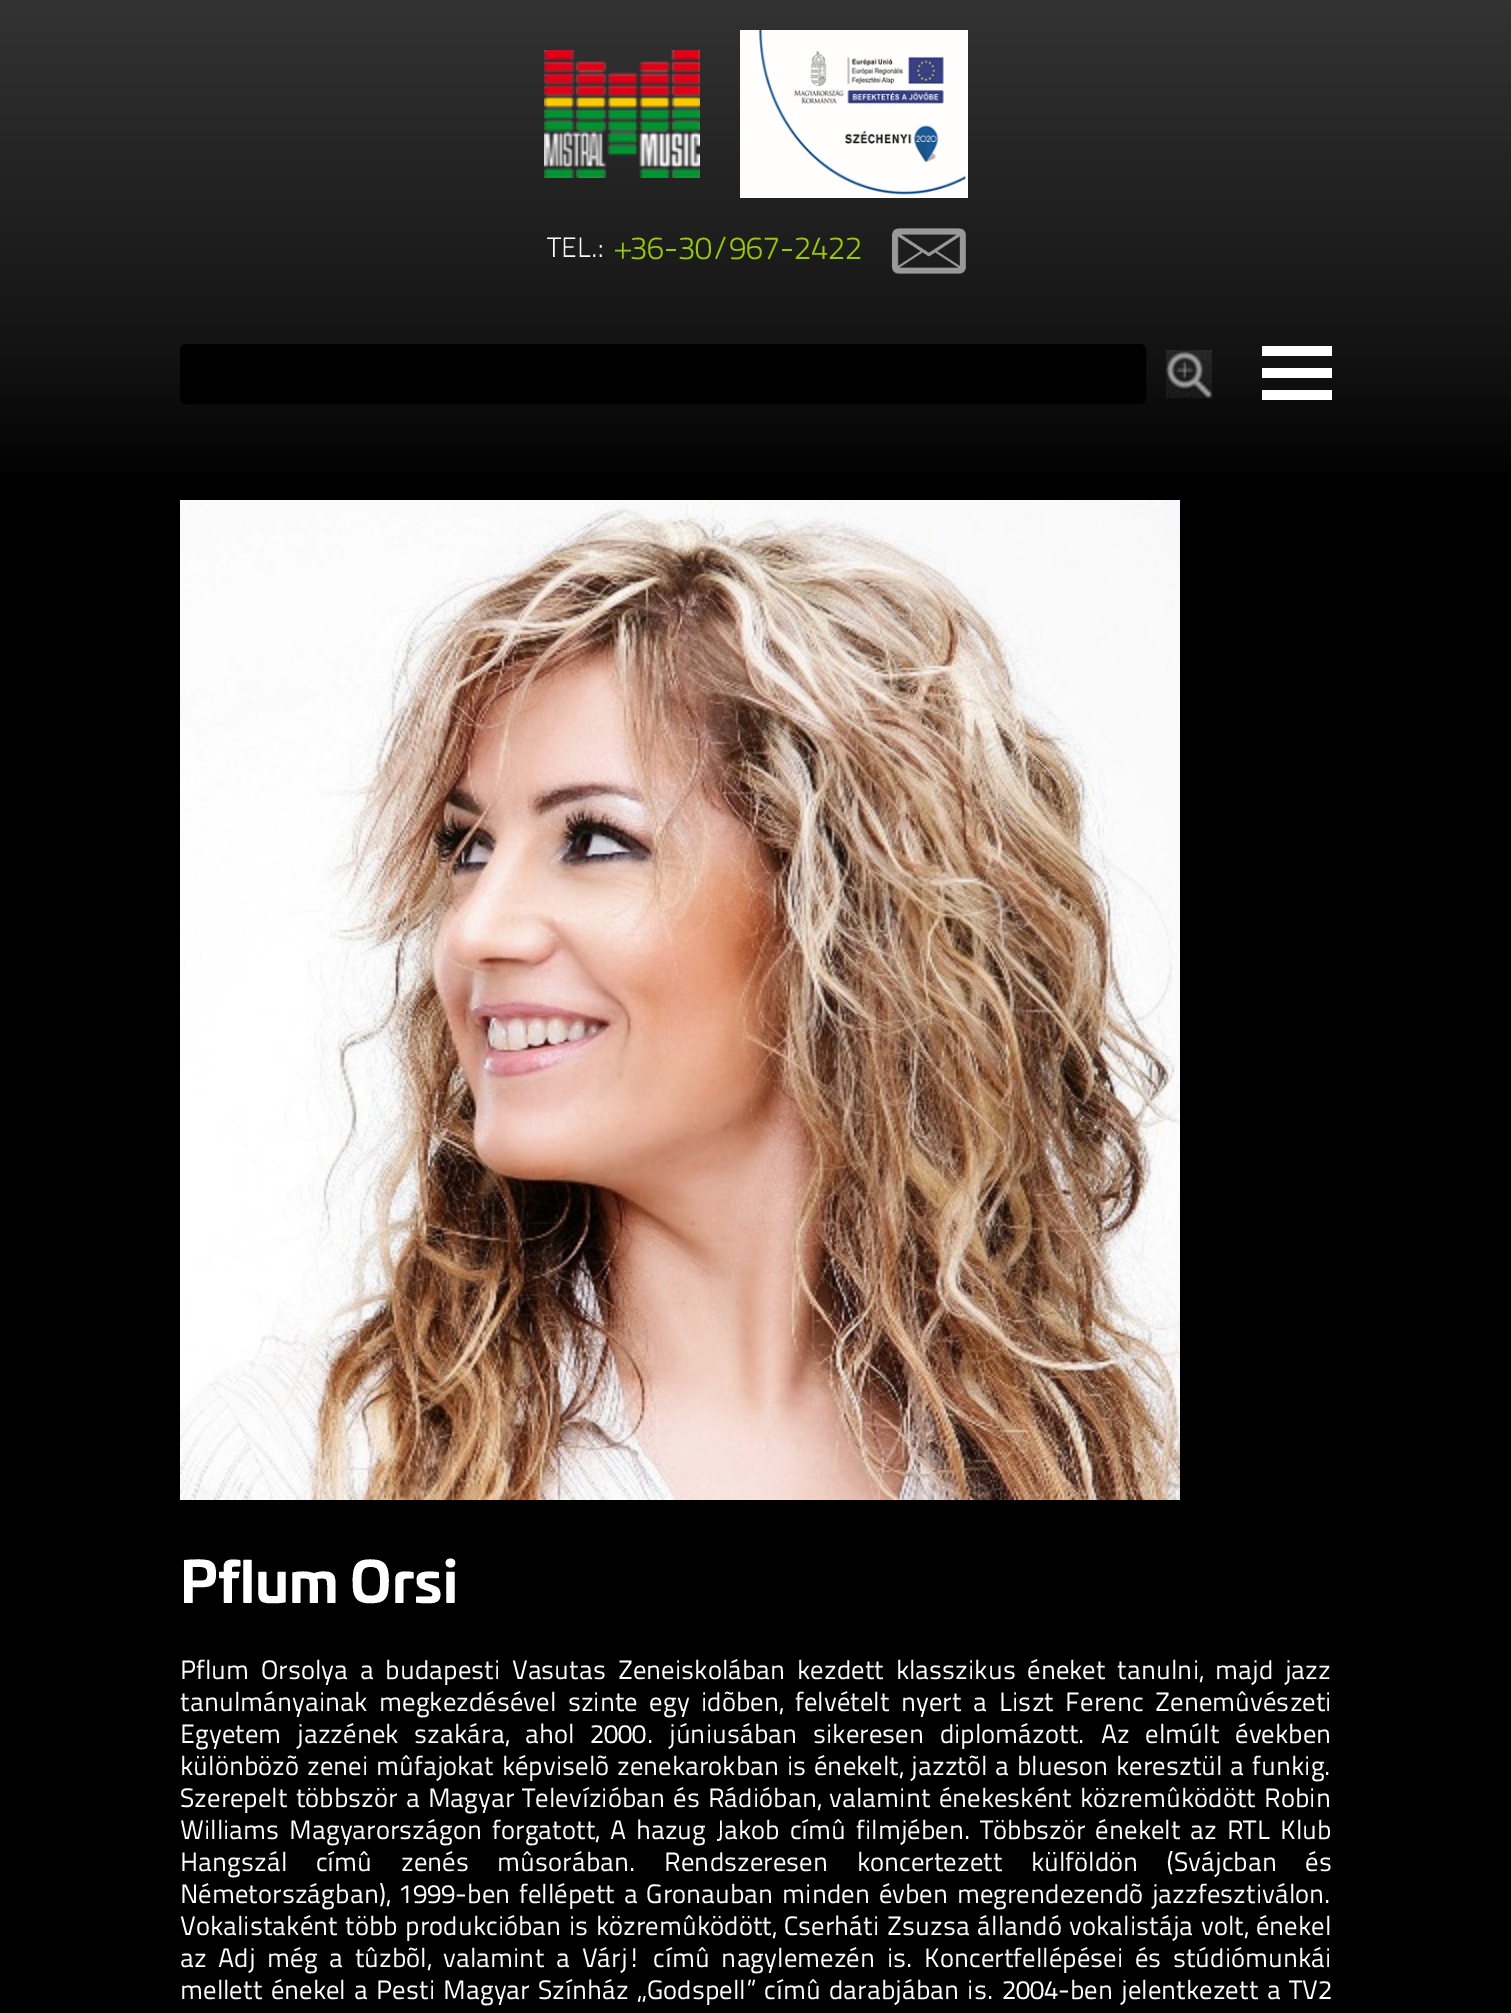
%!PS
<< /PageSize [1511 2013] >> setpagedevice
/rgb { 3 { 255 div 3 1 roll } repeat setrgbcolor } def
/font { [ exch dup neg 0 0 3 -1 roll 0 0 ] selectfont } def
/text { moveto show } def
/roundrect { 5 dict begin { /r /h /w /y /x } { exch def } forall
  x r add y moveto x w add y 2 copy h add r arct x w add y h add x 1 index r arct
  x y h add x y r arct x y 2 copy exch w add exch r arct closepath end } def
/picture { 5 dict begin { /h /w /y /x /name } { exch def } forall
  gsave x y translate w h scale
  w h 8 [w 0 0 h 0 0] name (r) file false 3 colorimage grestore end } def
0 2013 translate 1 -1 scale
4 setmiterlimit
0 0 0 rgb
0 0 1511 2013 rectfill
gsave 0 0 moveto 1511 0 rlineto 0 472 rlineto -1511 0 rlineto closepath clip newpath
<< /ShadingType 2 /ColorSpace /DeviceRGB /Coords [756 0 756 472] /Extend [true true] /Function << /FunctionType 3 /Domain [0 1] /Functions [<< /FunctionType 2 /Domain [0 1] /C0 [0.2 0.2 0.2] /C1 [0.157 0.157 0.157] /N 1 >> << /FunctionType 2 /Domain [0 1] /C0 [0.157 0.157 0.157] /C1 [0.118 0.118 0.118] /N 1 >> << /FunctionType 2 /Domain [0 1] /C0 [0.118 0.118 0.118] /C1 [0.075 0.075 0.075] /N 1 >> << /FunctionType 2 /Domain [0 1] /C0 [0.075 0.075 0.075] /C1 [0.012 0.012 0.012] /N 1 >>] /Bounds [0.25 0.5 0.75] /Encode [0 1 0 1 0 1 0 1] >> >> shfill grestore
(img_01.rgb) 544 50 156 128 picture
(img_02.rgb) 740 30 228 168 picture
(img_03.rgb) 892 228 74 46 picture
181 345 964 58 5 roundrect gsave fill grestore
2 setlinewidth
stroke
(img_04.rgb) 1166 350 46 48 picture
255 255 255 rgb
1262 346 70 10 rectfill
1262 368 70 10 rectfill
1262 390 70 10 rectfill
(img_05.rgb) 180 500 1000 1000 picture
/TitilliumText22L-Light 28 font
(TEL.:) 547 257 text
/TitilliumText22L-Light 32 font
153 204 0 rgb
(+36-30/967-2422) 616 259 text
/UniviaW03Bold-Bold 56 font
255 255 255 rgb
(Pflum Orsi) 180 1603 text
/TitilliumText22L-Regular 26.65 font
180 1679 moveto 5.4 0 32 (Pflum Orsolya a budapesti Vasutas Zeneiskolában kezdett klasszikus éneket tanulni, majd jazz) widthshow
180 1711 moveto 5.25 0 32 (tanulmányainak megkezdésével szinte egy idõben, felvételt nyert a Liszt Ferenc Zenemûvészeti) widthshow
180 1743 moveto 9.5 0 32 (Egyetem jazzének szakára, ahol 2000. júniusában sikeresen diplomázott. Az elmúlt években) widthshow
180 1775 moveto 1.5 0 32 (különbözõ zenei mûfajokat képviselõ zenekarokban is énekelt, jazztõl a blueson keresztül a funkig.) widthshow
180 1807 moveto 1.8 0 32 (Szerepelt többször a Magyar Televízióban és Rádióban, valamint énekesként közremûködött Robin) widthshow
180 1839 moveto 3.6 0 32 (Williams Magyarországon forgatott, A hazug Jakob címû filmjében. Többször énekelt az RTL Klub) widthshow
180 1871 moveto 22.25 0 32 (Hangszál címû zenés mûsorában. Rendszeresen koncertezett külföldön \(Svájcban és) widthshow
180 1903 moveto 2.5 0 32 (Németországban\), 1999-ben fellépett a Gronauban minden évben megrendezendõ jazzfesztiválon.) widthshow
180 1935 moveto 1.25 0 32 (Vokalistaként több produkcióban is közremûködött, Cserháti Zsuzsa állandó vokalistája volt, énekel) widthshow
180 1967 moveto 5.4 0 32 (az Adj még a tûzbõl, valamint a Várj! címû nagylemezén is. Koncertfellépései és stúdiómunkái) widthshow
180 1999 moveto 2 0 32 (mellett énekel a Pesti Magyar Színház „Godspell” címû darabjában is. 2004-ben jelentkezett a TV2) widthshow
showpage
